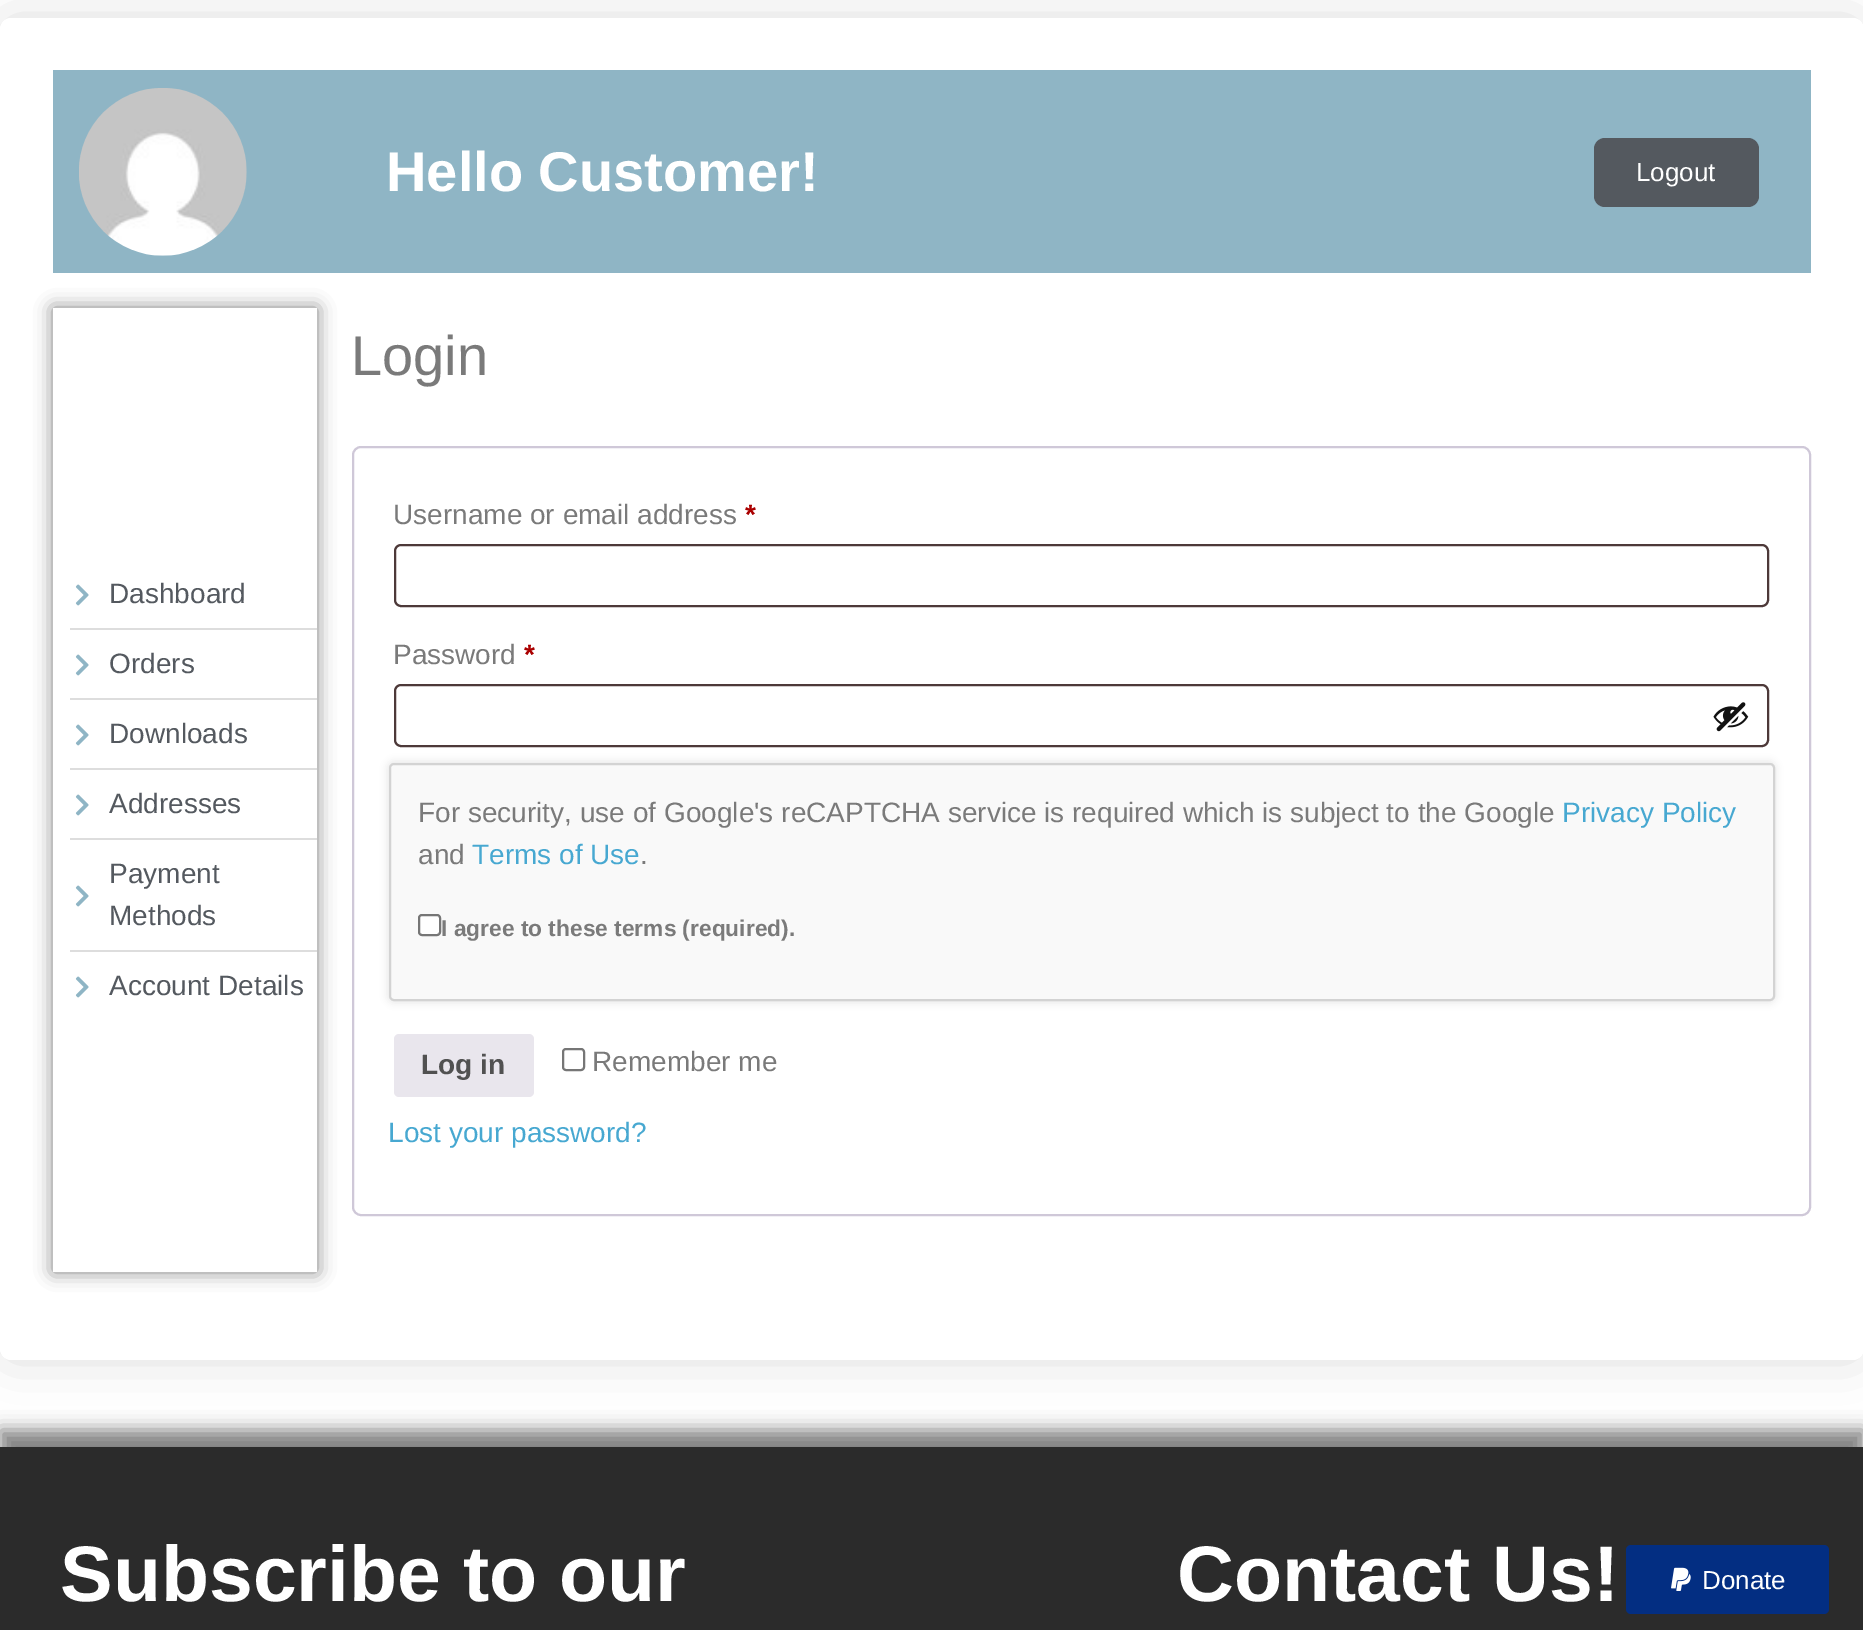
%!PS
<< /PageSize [1863 1630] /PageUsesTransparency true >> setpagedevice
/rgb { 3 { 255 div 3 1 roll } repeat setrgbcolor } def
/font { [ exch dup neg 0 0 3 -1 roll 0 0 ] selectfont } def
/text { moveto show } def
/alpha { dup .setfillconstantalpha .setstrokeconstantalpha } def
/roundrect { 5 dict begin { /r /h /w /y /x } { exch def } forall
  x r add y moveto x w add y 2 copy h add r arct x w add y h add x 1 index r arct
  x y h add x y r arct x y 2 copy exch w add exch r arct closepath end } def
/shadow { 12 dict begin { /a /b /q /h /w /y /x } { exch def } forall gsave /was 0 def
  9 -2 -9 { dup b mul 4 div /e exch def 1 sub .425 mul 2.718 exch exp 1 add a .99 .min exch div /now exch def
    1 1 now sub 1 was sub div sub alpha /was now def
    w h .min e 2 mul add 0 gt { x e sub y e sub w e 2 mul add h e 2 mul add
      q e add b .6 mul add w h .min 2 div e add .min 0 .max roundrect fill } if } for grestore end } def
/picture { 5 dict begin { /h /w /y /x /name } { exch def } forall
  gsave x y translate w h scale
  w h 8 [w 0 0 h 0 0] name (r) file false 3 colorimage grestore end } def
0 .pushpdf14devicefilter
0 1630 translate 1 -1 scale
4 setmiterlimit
255 255 255 rgb
0 0 1863 1630 rectfill
0 0 0 rgb
0 18 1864 1342 11 26 0.13 shadow
255 255 255 rgb
0 18 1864 1342 11 roundrect fill
143 181 197 rgb
53 70 1758 203 rectfill
(img_01.rgb) 79 88 168 168 picture
84 89 95 rgb
1594 138 165 69 11 roundrect fill
gsave
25 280 moveto 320 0 rlineto 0 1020 rlineto -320 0 rlineto closepath 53 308 moveto 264 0 rlineto 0 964 rlineto -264 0 rlineto closepath eoclip newpath
0 0 0 rgb
53 308 264 964 0 9 0.5 shadow
grestore
(img_02.rgb) 75 584 14 22 picture
221 221 221 rgb
70 628 247 2 rectfill
(img_02.rgb) 75 654 14 22 picture
70 698 247 2 rectfill
(img_02.rgb) 75 724 14 22 picture
70 768 247 2 rectfill
(img_02.rgb) 75 794 14 22 picture
70 838 247 2 rectfill
(img_02.rgb) 75 885 14 22 picture
70 950 247 2 rectfill
(img_02.rgb) 75 976 14 22 picture
207 200 216 rgb
2 setlinewidth
353 447 1457 768 8 roundrect stroke
77 57 57 rgb
395 545 1373 61 6 roundrect stroke
395 685 1373 61 6 roundrect stroke
(img_03.rgb) 1713 702 36 30 picture
0 0 0 rgb
387 761 1389 242 7 3.5 0.08 shadow
249 249 249 rgb
390 764 1384 236 4 roundrect gsave fill grestore
211 211 211 rgb
stroke
255 255 255 rgb
419 915 21 20 3 roundrect gsave fill grestore
118 118 118 rgb
stroke
233 230 237 rgb
394 1034 140 63 5 roundrect fill
118 118 118 rgb
563 1049 21 21 3 roundrect stroke
0 0 0 rgb
0 1430 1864 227 0 9 0.5 shadow
43 43 43 rgb
0 1447 1863 183 rectfill
3 46 130 rgb
1626 1545 203 69 5 roundrect fill
(img_04.rgb) 1671 1567 20 24 picture
/LiberationSans-Bold 56 font
255 255 255 rgb
(Hello Customer!) 386 191 text
/LiberationSans-Regular 26 font
(Logout) 1636 181 text
/LiberationSans-Regular 28 font
84 89 95 rgb
(Dashboard) 109 603 text
(Orders) 109 673 text
(Downloads) 109 743 text
(Addresses) 109 813 text
(Payment) 109 883 text
(Methods) 109 925 text
(Account Details) 109 995 text
/LiberationSans-Regular 56 font
122 122 122 rgb
(Login) 351 375 text
/LiberationSans-Regular 28 font
(Username or email address) 393 524 text
/LiberationSans-Bold 28 font
170 0 0 rgb
(*) 745 524 text
/LiberationSans-Regular 28 font
122 122 122 rgb
(Password) 393 664 text
/LiberationSans-Bold 28 font
170 0 0 rgb
(*) 524 664 text
/LiberationSans-Regular 28 font
122 122 122 rgb
(For security, use of Google's reCAPTCHA service is required which is subject to the Google) 418 822 text
71 168 209 rgb
(Privacy Policy) 1562 822 text
122 122 122 rgb
(and) 418 864 text
71 168 209 rgb
(Terms of Use) 472 864 text
122 122 122 rgb
(.) 640 864 text
/LiberationSans-Bold 22.75 font
(I agree to these terms \(required\).) 441 936 text
/LiberationSans-Bold 28 font
81 81 81 rgb
(Log in) 421 1074 text
/LiberationSans-Regular 28 font
122 122 122 rgb
(Remember me) 592 1071 text
71 168 209 rgb
(Lost your password?) 388 1142 text
/LiberationSans-Bold 78.75 font
255 255 255 rgb
(Subscribe to our) 60 1601 text
(Contact Us!) 1177 1601 text
/LiberationSans-Regular 26 font
(Donate) 1702 1589 text
.poppdf14devicefilter showpage
